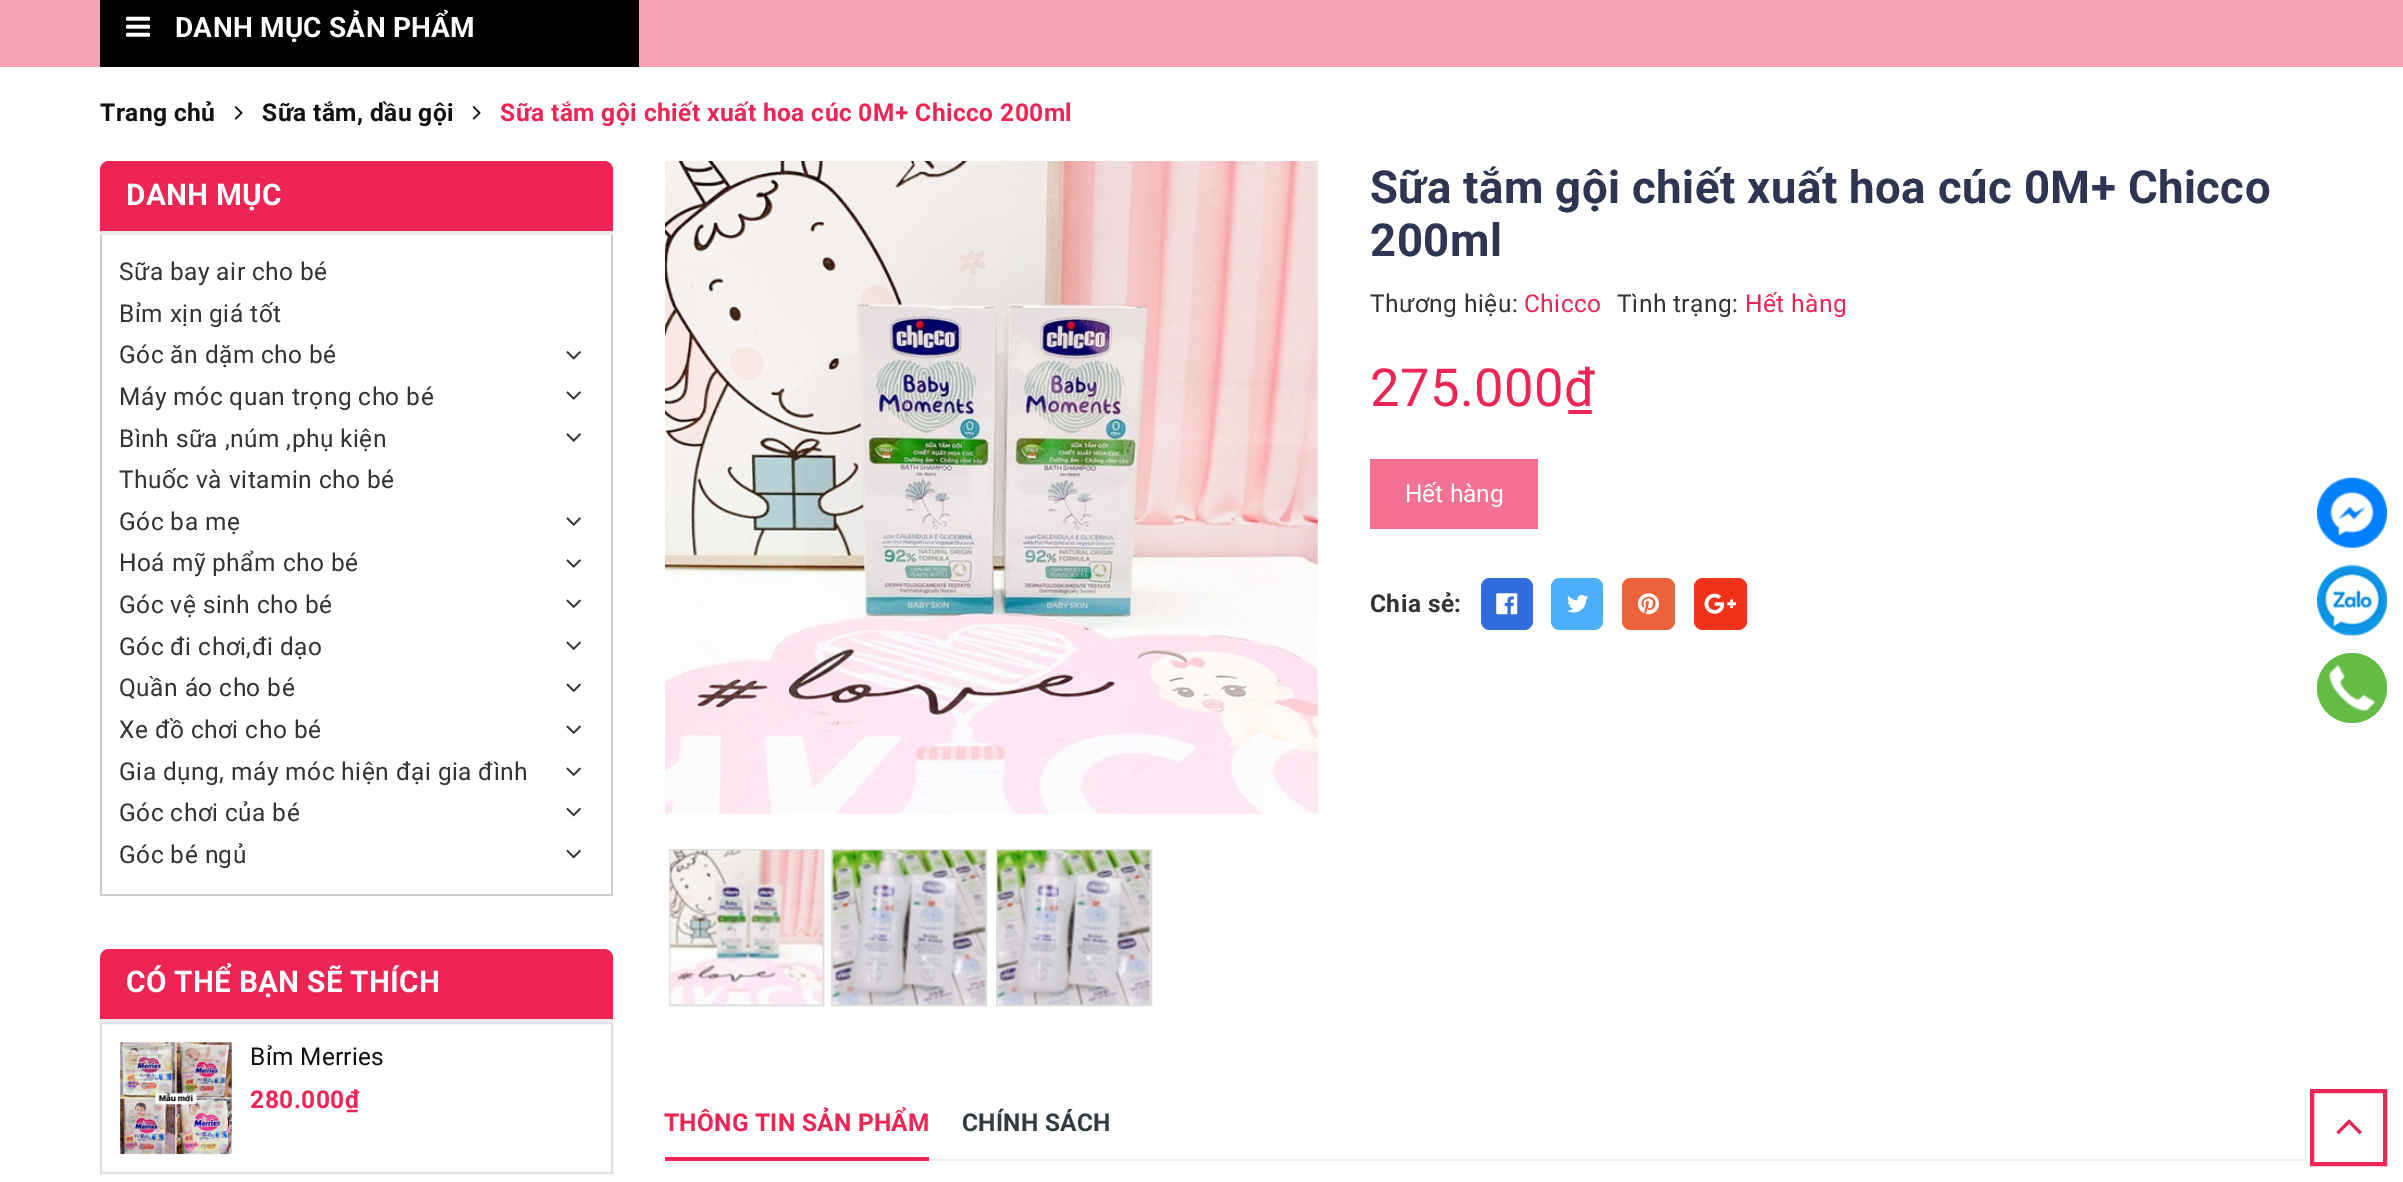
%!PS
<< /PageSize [2403 1182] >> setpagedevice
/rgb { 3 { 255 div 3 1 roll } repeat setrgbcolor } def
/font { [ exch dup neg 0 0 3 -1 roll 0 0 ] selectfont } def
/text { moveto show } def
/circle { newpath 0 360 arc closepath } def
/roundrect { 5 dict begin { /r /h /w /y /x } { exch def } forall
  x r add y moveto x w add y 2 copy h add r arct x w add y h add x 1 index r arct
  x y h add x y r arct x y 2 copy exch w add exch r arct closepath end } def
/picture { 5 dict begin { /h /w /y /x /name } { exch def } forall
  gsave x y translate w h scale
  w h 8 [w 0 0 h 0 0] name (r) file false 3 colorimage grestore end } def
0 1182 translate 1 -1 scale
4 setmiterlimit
255 255 255 rgb
0 0 2403 1182 rectfill
244 162 181 rgb
0 0 2403 67 rectfill
0 0 0 rgb
100 0 539 67 rectfill
(img_01.rgb) 126 16 24 21 picture
(img_02.rgb) 234 106 9 14 picture
(img_02.rgb) 472 106 9 14 picture
236 37 85 rgb
109 161 moveto 495 0 rlineto 5 0 9 4 9 9 rcurveto 0 65 rlineto -513 0 rlineto 0 -65 rlineto 0 -5 4 -9 9 -9 rcurveto closepath fill
235 235 235 rgb
100 231 513 4 rectfill
205 205 205 rgb
611 235 2 661 rectfill
100 894 513 2 rectfill
100 235 2 661 rectfill
(img_03.rgb) 566 351 15 9 picture
(img_04.rgb) 566 391 15 9 picture
(img_04.rgb) 566 433 15 9 picture
(img_04.rgb) 566 517 15 9 picture
(img_04.rgb) 566 559 15 9 picture
(img_05.rgb) 566 599 15 9 picture
(img_05.rgb) 566 641 15 9 picture
(img_05.rgb) 566 683 15 9 picture
(img_05.rgb) 566 725 15 9 picture
(img_05.rgb) 566 767 15 9 picture
(img_06.rgb) 566 807 15 10 picture
(img_06.rgb) 566 849 15 10 picture
236 37 85 rgb
109 949 moveto 495 0 rlineto 5 0 9 4 9 9 rcurveto 0 64 rlineto -513 0 rlineto 0 -64 rlineto 0 -5 4 -9 9 -9 rcurveto closepath fill
222 222 222 rgb
2 setlinewidth
101 1023 511 150 rectstroke
235 235 235 rgb
100 1019 513 4 rectfill
(img_07.rgb) 119 1041 113 114 picture
(img_08.rgb) 665 161 653 653 picture
221 221 221 rgb
670 850 153 155 rectstroke
(img_09.rgb) 669 850 154 155 picture
832 850 154 155 rectstroke
(img_10.rgb) 832 850 154 155 picture
997 850 154 155 rectstroke
(img_11.rgb) 997 850 154 155 picture
243 113 145 rgb
1370 459 168 70 rectfill
47 108 220 rgb
1481 578 52 52 9 roundrect fill
(img_12.rgb) 1496 593 22 22 picture
76 173 248 rgb
1551 578 52 52 9 roundrect fill
(img_13.rgb) 1567 595 22 18 picture
236 98 61 rgb
1622 578 53 52 9 roundrect fill
(img_14.rgb) 1638 593 21 22 picture
239 50 24 rgb
1694 578 53 52 9 roundrect fill
(img_15.rgb) 1704 593 32 21 picture
238 238 238 rgb
929 1159 1376 2 rectfill
236 37 85 rgb
665 1157 264 4 rectfill
(img_16.rgb) 2317 477 70 71 picture
(img_17.rgb) 2317 564 70 72 picture
100 188 70 rgb
2352 688 35 circle fill
(img_18.rgb) 2329 664 46 47 picture
236 37 85 rgb
4 setlinewidth
2312 1091 73 73 rectstroke
(img_19.rgb) 2336 1119 26 16 picture
/Roboto-Bold 28 font
255 255 255 rgb
175 37 moveto 0.25 0 (DANH MỤC SẢN PHẨM) ashow
/Roboto-Bold 24.5 font
17 17 17 rgb
100 121 moveto 0.45 0 (Trang chủ) ashow
262 121 moveto 0.45 0 (Sữa tắm, dầu gội) ashow
236 37 85 rgb
500 121 moveto 0.45 0 (Sữa tắm gội chiết xuất hoa cúc 0M+ Chicco 200ml) ashow
/Roboto-Bold 29.75 font
255 255 255 rgb
126 205 moveto 0.25 0 (DANH MỤC) ashow
/Roboto-Regular 24.5 font
51 51 51 rgb
119 280 moveto 0.45 0 (Sữa bay air cho bé) ashow
119 322 moveto 0.45 0 (Bỉm xịn giá tốt) ashow
119 363 moveto 0.45 0 (Góc ăn dặm cho bé) ashow
119 405 moveto 0.45 0 (Máy móc quan trọng cho bé) ashow
119 447 moveto 0.45 0 (Bình sữa ,núm ,phụ kiện) ashow
119 488 moveto 0.45 0 (Thuốc và vitamin cho bé) ashow
119 530 moveto 0.45 0 (Góc ba mẹ) ashow
119 571 moveto 0.45 0 (Hoá mỹ phẩm cho bé) ashow
119 613 moveto 0.45 0 (Góc vệ sinh cho bé) ashow
119 655 moveto 0.45 0 (Góc đi chơi,đi dạo) ashow
119 696 moveto 0.45 0 (Quần áo cho bé) ashow
119 738 moveto 0.45 0 (Xe đồ chơi cho bé) ashow
119 780 moveto 0.45 0 (Gia dụng, máy móc hiện đại gia đình) ashow
119 821 moveto 0.45 0 (Góc chơi của bé) ashow
119 863 moveto 0.45 0 (Góc bé ngủ) ashow
/Roboto-Bold 29.75 font
255 255 255 rgb
126 992 moveto 0.25 0 (CÓ THỂ BẠN SẼ THÍCH) ashow
/Roboto-Regular 24.5 font
17 17 17 rgb
250 1065 moveto 0.25 0 (Bỉm Merries) ashow
/Roboto-Bold 24.5 font
236 37 85 rgb
250 1108 moveto 0.45 0 (280.000₫) ashow
/Roboto-Bold 45.5 font
46 53 83 rgb
1370 203 moveto 0.45 0 (Sữa tắm gội chiết xuất hoa cúc 0M+ Chicco) ashow
1370 256 moveto 0.45 0 (200ml) ashow
/Roboto-Regular 24.5 font
51 51 51 rgb
1370 312 moveto 0.45 0 (Thương hiệu:) ashow
236 37 85 rgb
1524 312 moveto 0.45 0 (Chicco) ashow
51 51 51 rgb
1617 312 moveto 0.45 0 (Tình trạng:) ashow
236 37 85 rgb
1745 312 moveto 0.45 0 (Hết hàng) ashow
/Roboto-Regular 52.5 font
1370 406 moveto 0.45 0 (275.000₫) ashow
/Roboto-Regular 24.5 font
255 255 255 rgb
(Hết hàng) 1405 502 text
/Roboto-Bold 24.5 font
51 51 51 rgb
1370 612 moveto 0.45 0 (Chia sẻ:) ashow
236 37 85 rgb
664 1131 moveto 0.25 0 (THÔNG TIN SẢN PHẨM) ashow
50 60 63 rgb
962 1131 moveto 0.25 0 (CHÍNH SÁCH) ashow
showpage
